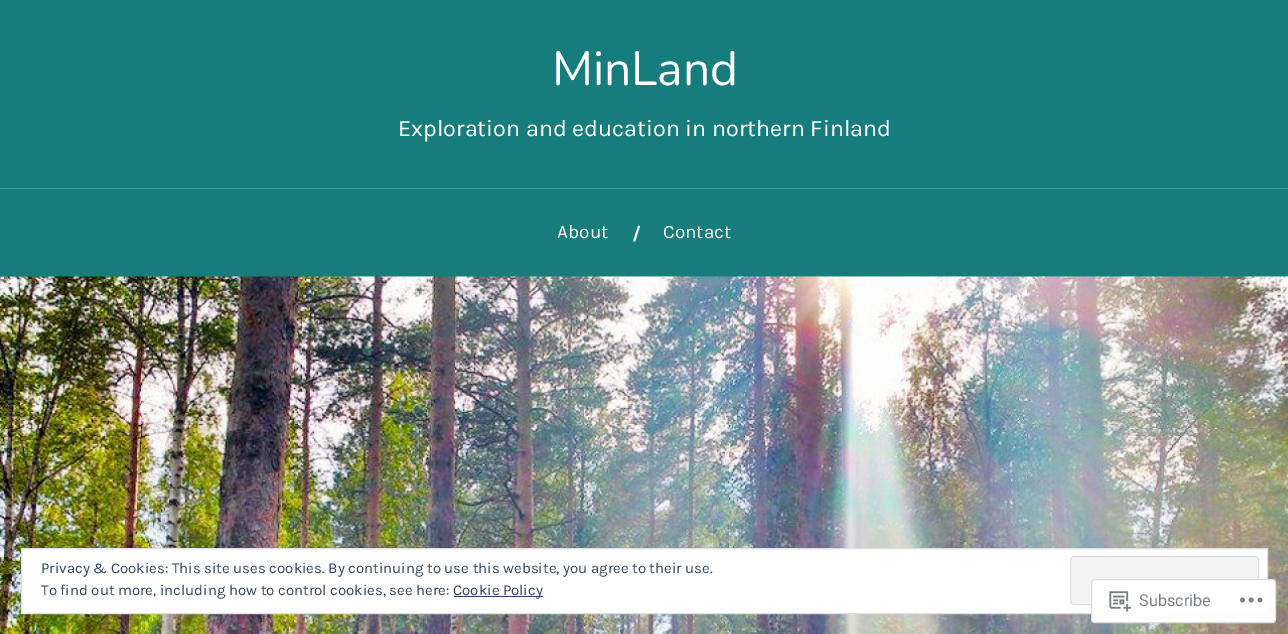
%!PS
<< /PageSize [1288 634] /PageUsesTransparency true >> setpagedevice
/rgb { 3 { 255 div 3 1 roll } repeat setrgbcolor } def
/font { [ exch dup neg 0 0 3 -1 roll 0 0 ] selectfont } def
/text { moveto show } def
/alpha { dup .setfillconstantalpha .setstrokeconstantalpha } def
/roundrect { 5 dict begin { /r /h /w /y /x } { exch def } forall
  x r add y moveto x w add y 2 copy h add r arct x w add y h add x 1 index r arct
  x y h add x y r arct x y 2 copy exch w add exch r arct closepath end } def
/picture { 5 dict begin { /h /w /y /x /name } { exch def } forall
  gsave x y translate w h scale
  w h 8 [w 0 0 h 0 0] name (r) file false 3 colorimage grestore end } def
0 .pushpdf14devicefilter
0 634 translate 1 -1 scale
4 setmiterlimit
22 124 124 rgb
0 0 1288 634 rectfill
82 153 153 rgb
0 188 1288 1 rectfill
(img_01.rgb) 0 276 1288 358 picture
255 255 255 rgb
21.5 548.5 moveto 1246 0 rlineto 0 65 rlineto -1246 0 rlineto closepath gsave fill grestore
222 222 222 rgb
stroke
243 243 243 rgb
1070.5 556.5 188 48 3.5 roundrect gsave fill grestore
222 222 222 rgb
stroke
46 68 103 rgb
454 596 89 1 rectfill
0.98 alpha
255 255 255 rgb
1091 579 185 44 4 roundrect fill
220 220 222 rgb
1091.5 579.5 184 43 3.5 roundrect stroke
1 alpha
(img_02.rgb) 1109 591 22 21 picture
(img_03.rgb) 1240 597 23 6 picture
/Nunito-ExtraLight 48 font
255 255 255 rgb
(MinLand) 552 85 text
/Karla-Regular 23.4 font
(Exploration and education in northern Finland) 398 136 text
/Karla-Regular 19 font
(About) 557 238 text
/Karla-Bold 19 font
(/) 632 240 text
/Karla-Regular 19 font
(Contact) 663 238 text
/Karla-Regular 15 font
46 68 103 rgb
(Privacy & Cookies: This site uses cookies. By continuing to use this website, you agree to their use.) 41 573 text
(To find out more, including how to control cookies, see here:) 41 595 text
(Cookie Policy) 453 595 text
/Roboto-Regular 16.25 font
123 127 132 rgb
(Subscribe) 1139 606 text
.poppdf14devicefilter showpage
